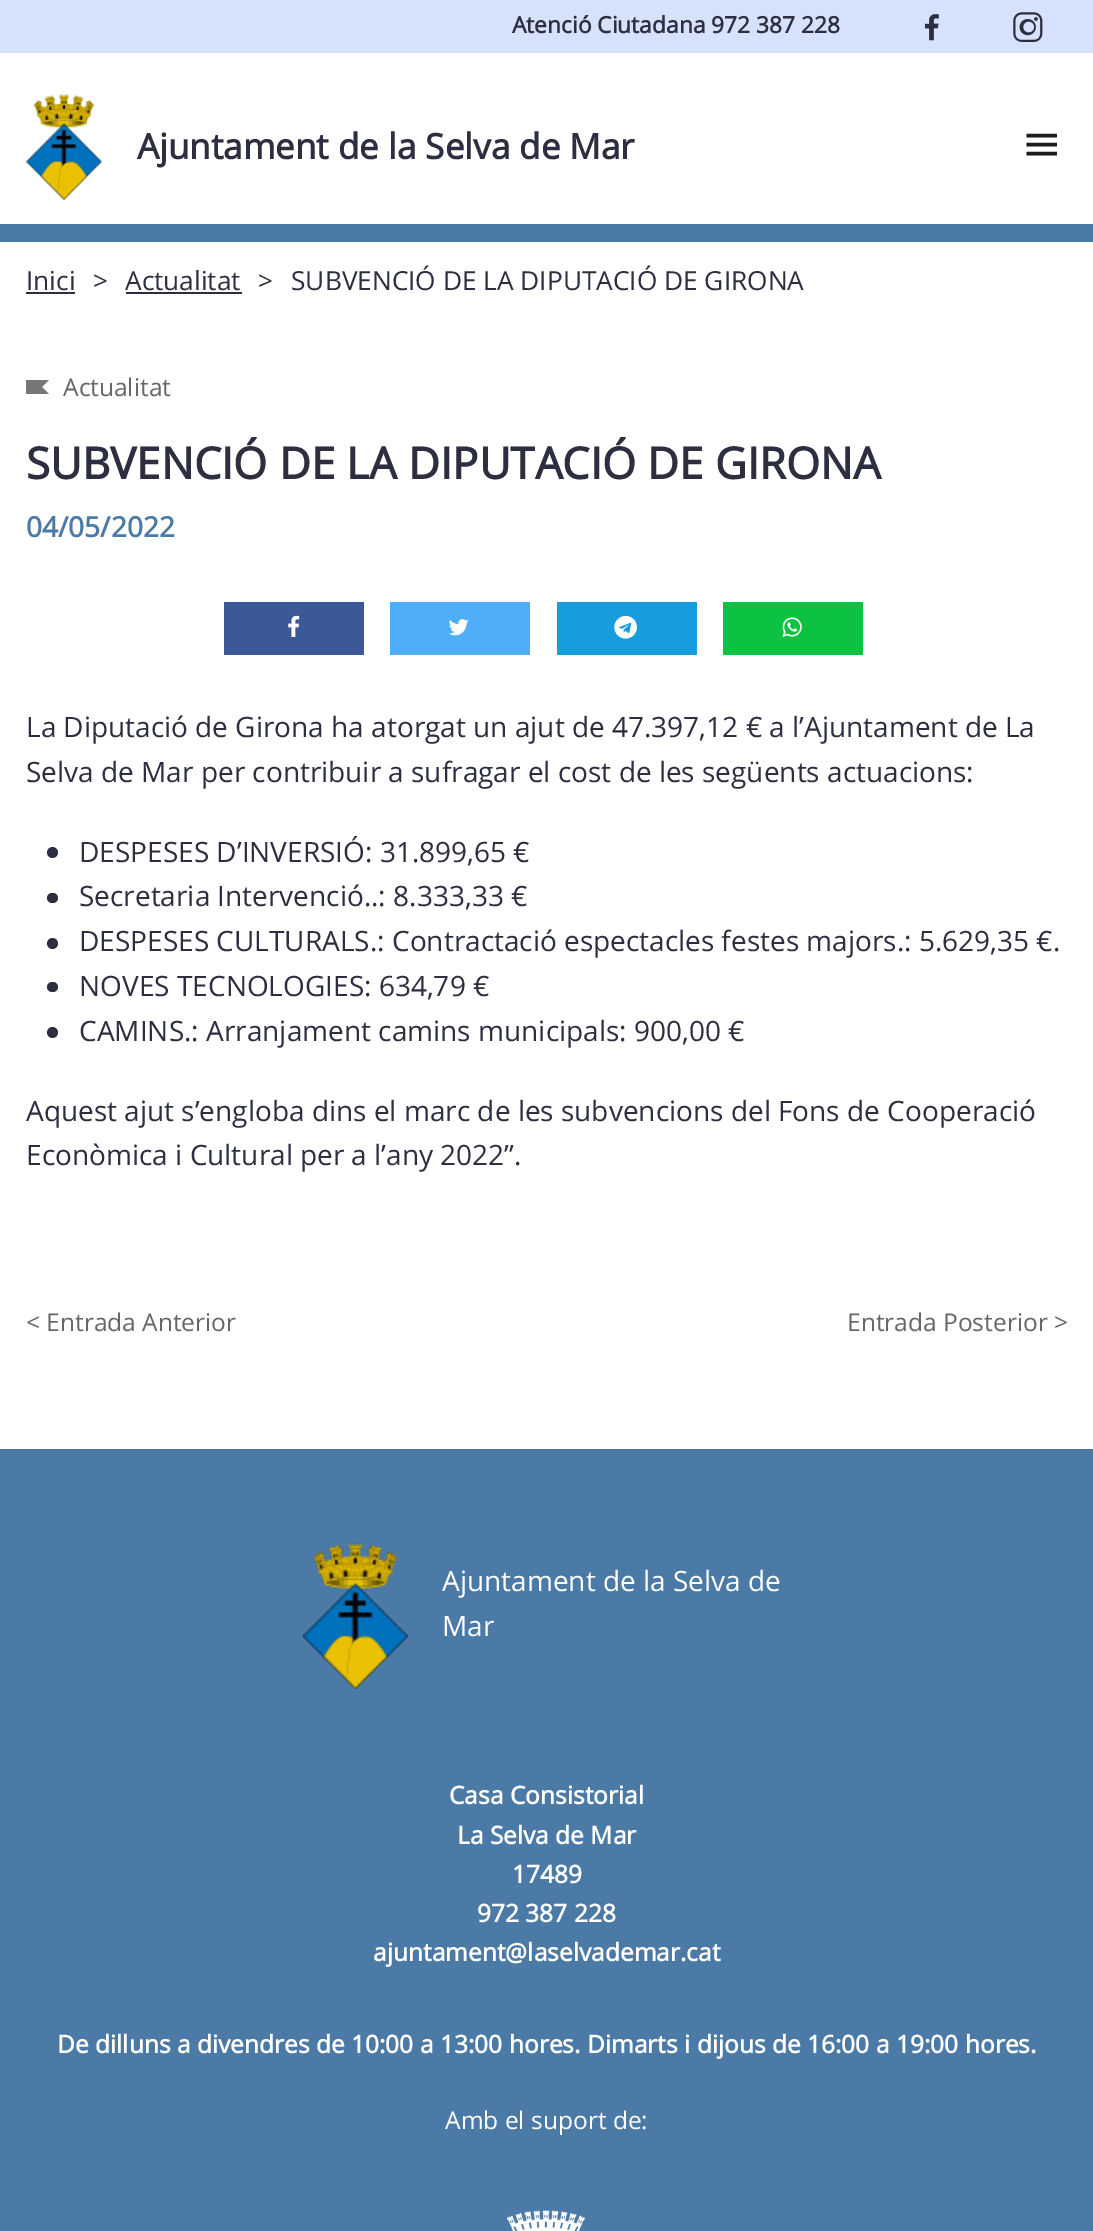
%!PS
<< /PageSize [1093 2231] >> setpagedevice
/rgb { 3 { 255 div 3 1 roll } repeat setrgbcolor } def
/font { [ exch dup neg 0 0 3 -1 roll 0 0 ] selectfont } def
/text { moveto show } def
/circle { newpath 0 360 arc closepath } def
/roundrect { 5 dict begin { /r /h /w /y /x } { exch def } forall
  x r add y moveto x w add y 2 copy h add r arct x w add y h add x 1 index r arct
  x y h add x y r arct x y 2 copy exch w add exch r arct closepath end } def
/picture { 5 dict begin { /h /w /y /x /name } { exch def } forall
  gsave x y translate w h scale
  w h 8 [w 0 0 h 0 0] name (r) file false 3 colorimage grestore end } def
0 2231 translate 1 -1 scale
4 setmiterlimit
255 255 255 rgb
0 0 1093 2231 rectfill
76 122 167 rgb
0 224 1093 18 rectfill
214 226 252 rgb
0 0 1093 53 rectfill
(img_01.rgb) 924 14 15 27 picture
(img_02.rgb) 1013 12 30 30 picture
(img_03.rgb) 26 94 76 106 picture
29 29 27 rgb
3.5 setlinewidth
1026.5 135.5 moveto 30.5 0 rlineto 1026.5 144.5 moveto 30.5 0 rlineto 1026.5 153.5 moveto 30.5 0 rlineto stroke
45 46 64 rgb
26 292 49 2 rectfill
126 292 116 2 rectfill
119 119 119 rgb
26 394 moveto 0 -14 rlineto 23 0 rlineto -7 7 rlineto 7 7 rlineto closepath eofill
59 89 152 rgb
224 602 140 53 rectfill
(img_04.rgb) 288 615 12 22 picture
78 174 248 rgb
390 602 140 53 rectfill
(img_05.rgb) 448 619 21 17 picture
23 156 222 rgb
557 602 140 53 rectfill
(img_06.rgb) 614 615 23 24 picture
13 193 67 rgb
723 602 140 53 rectfill
(img_07.rgb) 782 617 20 20 picture
45 46 64 rgb
52.5 852.5 5.5 circle fill
47 893 11 10 5 roundrect fill
52.5 943.5 5.5 circle fill
47 982 11 10 5 roundrect fill
52.5 1032.5 5.5 circle fill
76 122 167 rgb
0 1449 1093 782 rectfill
(img_08.rgb) 302 1542 106 147 picture
(img_09.rgb) 506 2210 79 21 picture
/OpenSans-Bold 22.75 font
45 46 64 rgb
(Atenció Ciutadana 972 387 228) 512 33 text
/OpenSans-Bold 35 font
(Ajuntament de la Selva de Mar) 137 159 text
/OpenSans-Regular 26.25 font
(Inici) 26 290 text
/OpenSans-Regular 26 font
(>) 93 290 text
/OpenSans-Regular 26.25 font
(Actualitat) 125 290 text
/OpenSans-Regular 26 font
(>) 258 290 text
/OpenSans-Regular 26.25 font
(SUBVENCIÓ DE LA DIPUTACIÓ DE GIRONA) 291 290 text
/OpenSans-Regular 24.5 font
103 103 103 rgb
(Actualitat) 63 396 text
/OpenSans-Bold 43.75 font
45 46 64 rgb
(SUBVENCIÓ DE LA DIPUTACIÓ DE GIRONA) 26 479 text
/OpenSans-Bold 28 font
76 122 167 rgb
(04/05/2022) 26 537 text
/OpenSans-Regular 28 font
45 46 64 rgb
(La Diputació de Girona ha atorgat un ajut de 47.397,12 € a l’Ajuntament de La) 26 737 text
(Selva de Mar per contribuir a sufragar el cost de les següents actuacions:) 26 782 text
(DESPESES D’INVERSIÓ: 31.899,65 €) 79 862 text
(Secretaria Intervenció..: 8.333,33 €) 79 906 text
(DESPESES CULTURALS.: Contractació espectacles festes majors.: 5.629,35 €.) 79 951 text
(NOVES TECNOLOGIES: 634,79 €) 79 996 text
(CAMINS.: Arranjament camins municipals: 900,00 €) 79 1041 text
(Aquest ajut s’engloba dins el marc de les subvencions del Fons de Cooperació) 26 1121 text
(Econòmica i Cultural per a l’any 2022”.) 26 1165 text
/OpenSans-Regular 24.5 font
103 103 103 rgb
(< Entrada Anterior) 26 1331 text
(Entrada Posterior >) 847 1331 text
/OpenSans-Regular 28 font
255 255 255 rgb
(Ajuntament de la Selva de) 442 1591 text
(Mar) 442 1636 text
/OpenSans-Bold 24.5 font
(Casa Consistorial) 449 1804 text
(La Selva de Mar) 457 1844 text
(17489) 512 1883 text
(972 387 228) 477 1922 text
(ajuntament@laselvademar.cat) 373 1961 text
(De dilluns a divendres de 10:00 a 13:00 hores. Dimarts i dijous de 16:00 a 19:00 hores.) 57 2053 text
/OpenSans-Regular 24.5 font
(Amb el suport de:) 445 2129 text
showpage
